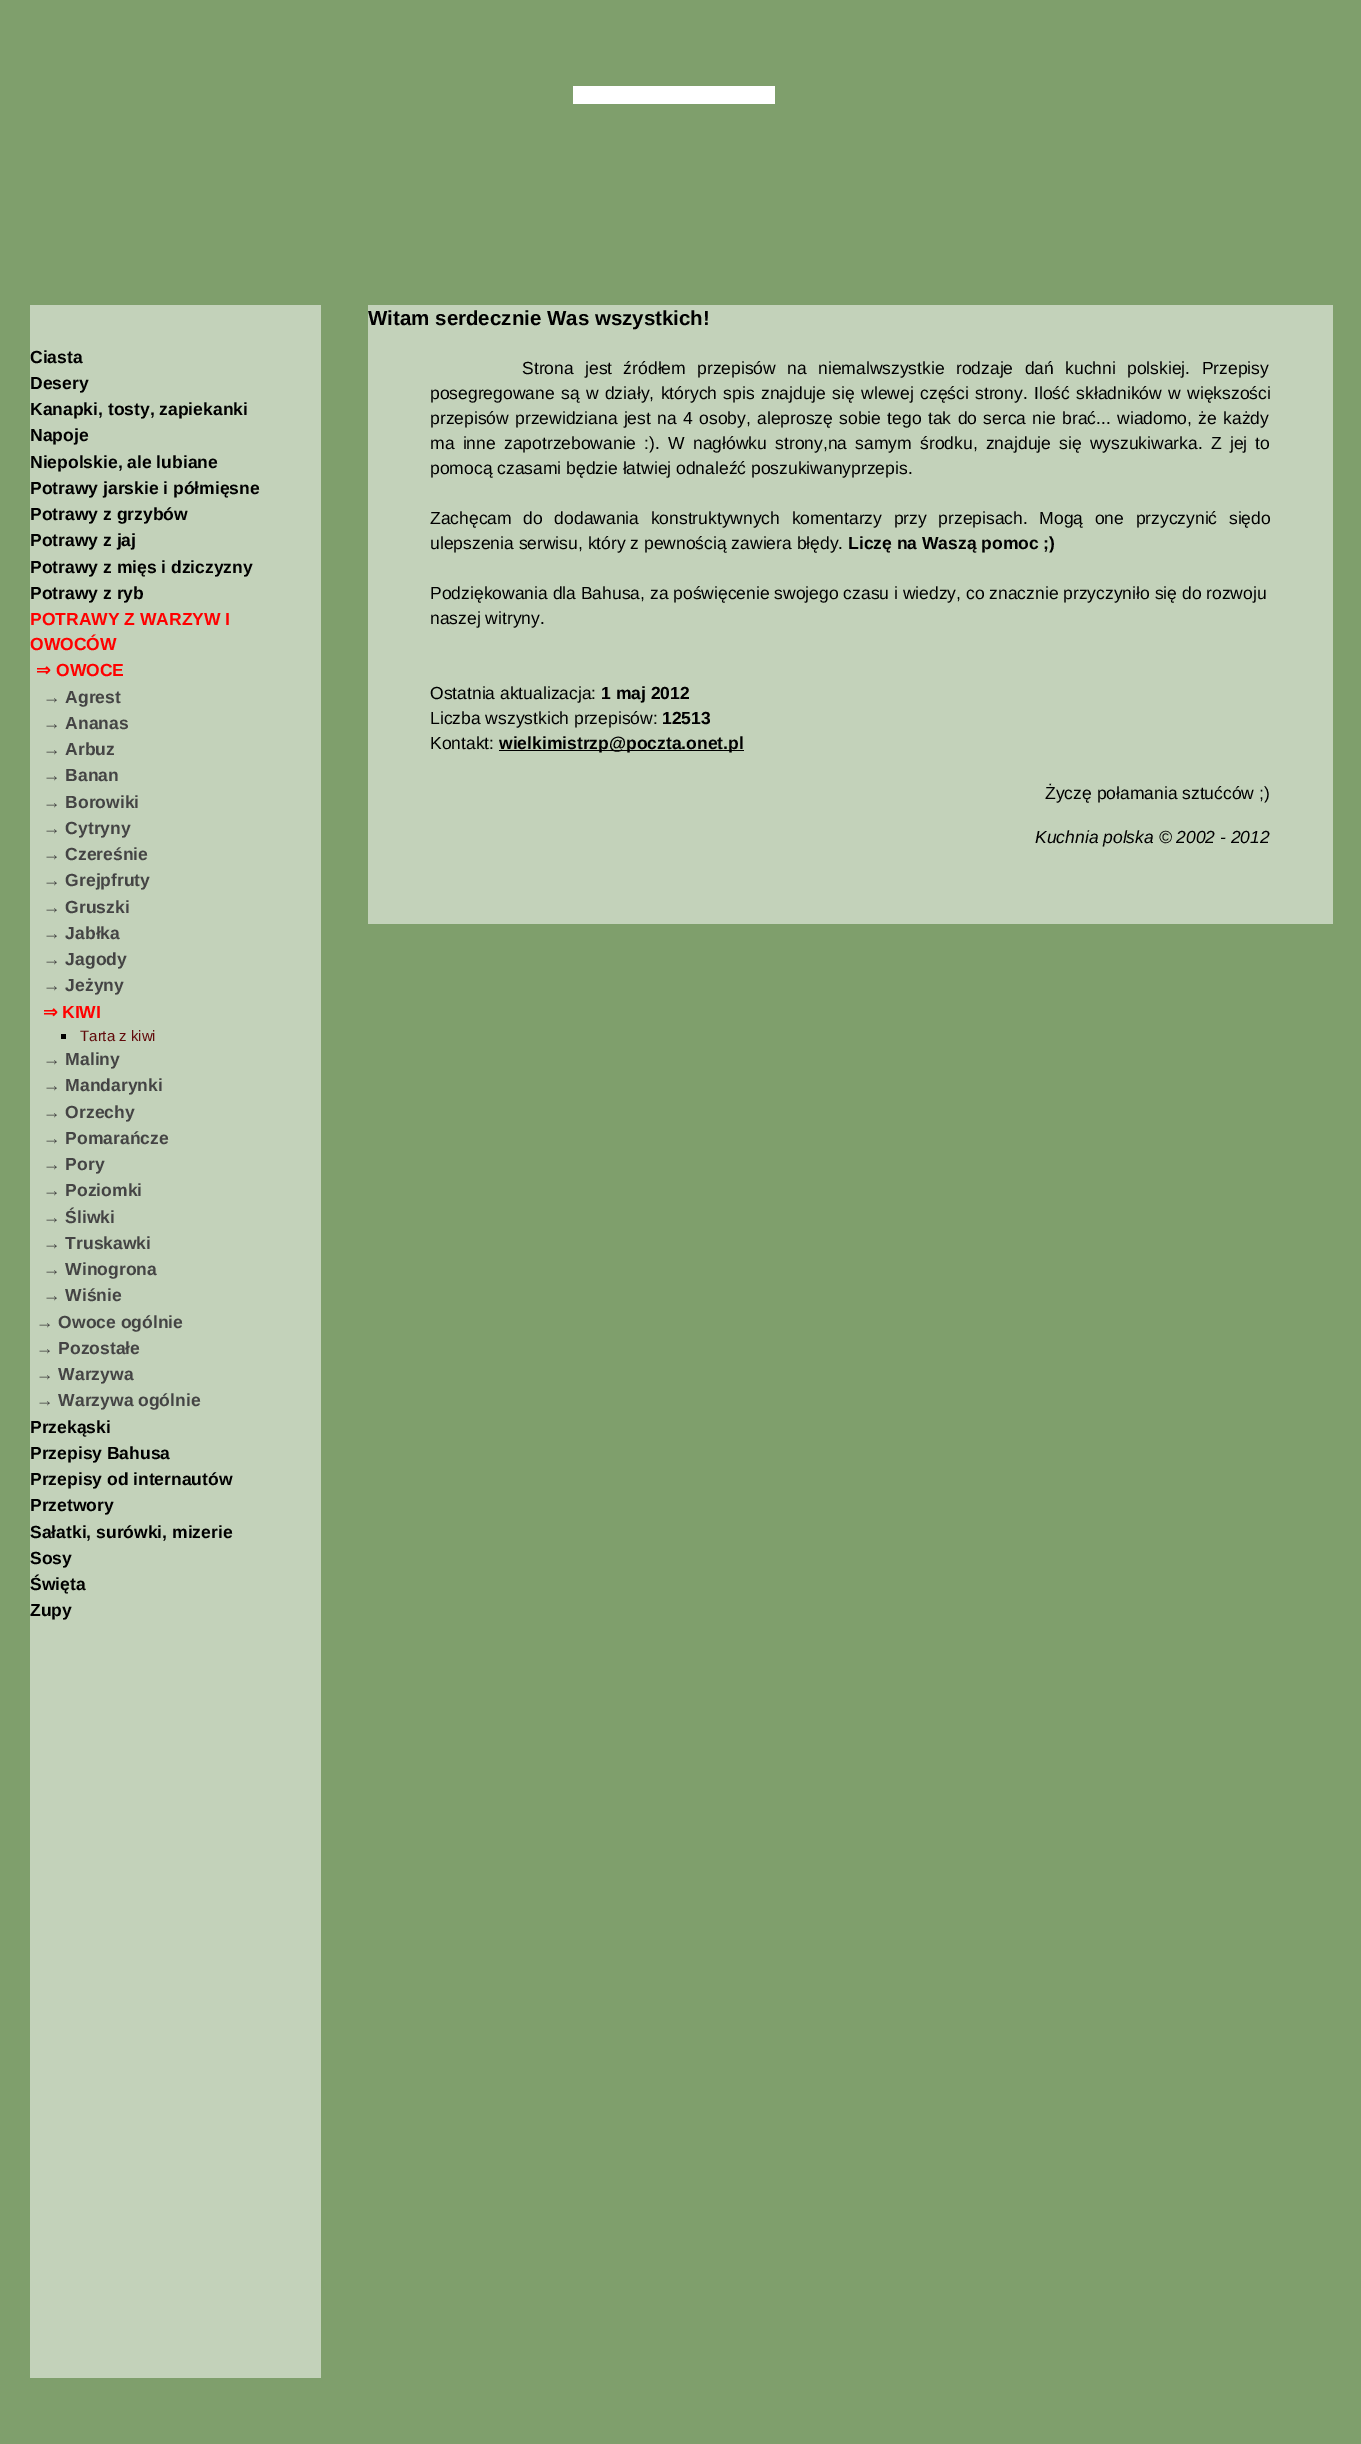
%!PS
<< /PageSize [1361 2444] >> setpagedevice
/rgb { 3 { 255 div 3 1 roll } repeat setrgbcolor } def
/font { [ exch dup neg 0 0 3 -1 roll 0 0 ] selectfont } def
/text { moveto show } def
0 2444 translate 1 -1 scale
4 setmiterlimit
127 159 108 rgb
0 0 1361 2444 rectfill
255 255 255 rgb
573 86 202 18 rectfill
195 210 186 rgb
30 305 291 2073 rectfill
0 0 0 rgb
61 1034 5 5 rectfill
195 210 186 rgb
368 305 965 619 rectfill
0 0 0 rgb
499 750 245 1 rectfill
/LiberationSans-Bold 17.5 font
(Ciasta) 30 363 text
(Desery) 30 389 text
(Kanapki, tosty, zapiekanki) 30 415 text
(Napoje) 30 441 text
(Niepolskie, ale lubiane) 30 468 text
(Potrawy jarskie i półmięsne) 30 494 text
(Potrawy z grzybów) 30 520 text
(Potrawy z jaj) 30 546 text
(Potrawy z mięs i dziczyzny) 30 573 text
(Potrawy z ryb) 30 599 text
255 0 0 rgb
(POTRAWY Z WARZYW I) 30 625 text
(OWOCÓW) 30 650 text
/DejaVuSans-Bold 17.5 font
(⇒) 36 676 text
/LiberationSans-Bold 17.5 font
(OWOCE) 56 676 text
68 68 68 rgb
(→ Agrest) 43 703 text
(→ Ananas) 43 729 text
(→ Arbuz) 43 755 text
(→ Banan) 43 781 text
(→ Borowiki) 43 808 text
(→ Cytryny) 43 834 text
(→ Czereśnie) 43 860 text
(→ Grejpfruty) 43 886 text
(→ Gruszki) 43 913 text
(→ Jabłka) 43 939 text
(→ Jagody) 43 965 text
(→ Jeżyny) 43 991 text
/DejaVuSans-Bold 17.5 font
255 0 0 rgb
(⇒) 43 1018 text
/LiberationSans-Bold 17.5 font
(KIWI) 62 1018 text
/LiberationSans-Regular 15 font
97 10 11 rgb
(Tarta z kiwi) 80 1041 text
/LiberationSans-Bold 17.5 font
68 68 68 rgb
(→ Maliny) 43 1065 text
(→ Mandarynki) 43 1091 text
(→ Orzechy) 43 1118 text
(→ Pomarańcze) 43 1144 text
(→ Pory) 43 1170 text
(→ Poziomki) 43 1196 text
(→ Śliwki) 43 1223 text
(→ Truskawki) 43 1249 text
(→ Winogrona) 43 1275 text
(→ Wiśnie) 43 1301 text
(→ Owoce ogólnie) 36 1328 text
(→ Pozostałe) 36 1354 text
(→ Warzywa) 36 1380 text
(→ Warzywa ogólnie) 36 1406 text
0 0 0 rgb
(Przekąski) 30 1433 text
(Przepisy Bahusa) 30 1459 text
(Przepisy od internautów) 30 1485 text
(Przetwory) 30 1511 text
(Sałatki, surówki, mizerie) 30 1538 text
(Sosy) 30 1564 text
(Święta) 30 1590 text
(Zupy) 30 1616 text
/LiberationSans-Bold 20.5 font
(Witam serdecznie Was wszystkich!) 368 325 text
/LiberationSans-Regular 17.5 font
522 374 moveto 6.5 0 32 (Strona jest źródłem przepisów na niemalwszystkie rodzaje dań kuchni polskiej. Przepisy) widthshow
430 399 moveto 1.5 0 32 (posegregowane są w działy, których spis znajduje się wlewej części strony. Ilość składników w większości) widthshow
430 424 moveto 1.5 0 32 (przepisów przewidziana jest na 4 osoby, aleproszę sobie tego tak do serca nie brać... wiadomo, że każdy) widthshow
430 449 moveto 3.4 0 32 (ma inne zapotrzebowanie :\). W nagłówku strony,na samym środku, znajduje się wyszukiwarka. Z jej to) widthshow
(pomocą czasami będzie łatwiej odnaleźć poszukiwanyprzepis.) 430 474 text
430 524 moveto 6.75 0 32 (Zachęcam do dodawania konstruktywnych komentarzy przy przepisach. Mogą one przyczynić siędo) widthshow
(ulepszenia serwisu, który z pewnością zawiera błędy.) 430 549 text
/LiberationSans-Bold 17.5 font
(Liczę na Waszą pomoc ;\)) 848 549 text
/LiberationSans-Regular 17.5 font
(Podziękowania dla Bahusa, za poświęcenie swojego czasu i wiedzy, co znacznie przyczyniło się do rozwoju) 430 599 text
(naszej witryny.) 430 624 text
(Ostatnia aktualizacja:) 430 699 text
/LiberationSans-Bold 17.5 font
(1 maj 2012) 601 699 text
/LiberationSans-Regular 17.5 font
(Liczba wszystkich przepisów:) 430 724 text
/LiberationSans-Bold 17.5 font
(12513) 662 724 text
/LiberationSans-Regular 17.5 font
(Kontakt:) 430 749 text
/LiberationSans-Bold 17.5 font
(wielkimistrzp@poczta.onet.pl) 499 749 text
/LiberationSans-Regular 17.5 font
(Życzę połamania sztućców ;\)) 1045 799 text
/LiberationSans-Italic 17.5 font
(Kuchnia polska © 2002 - 2012) 1035 843 text
showpage
